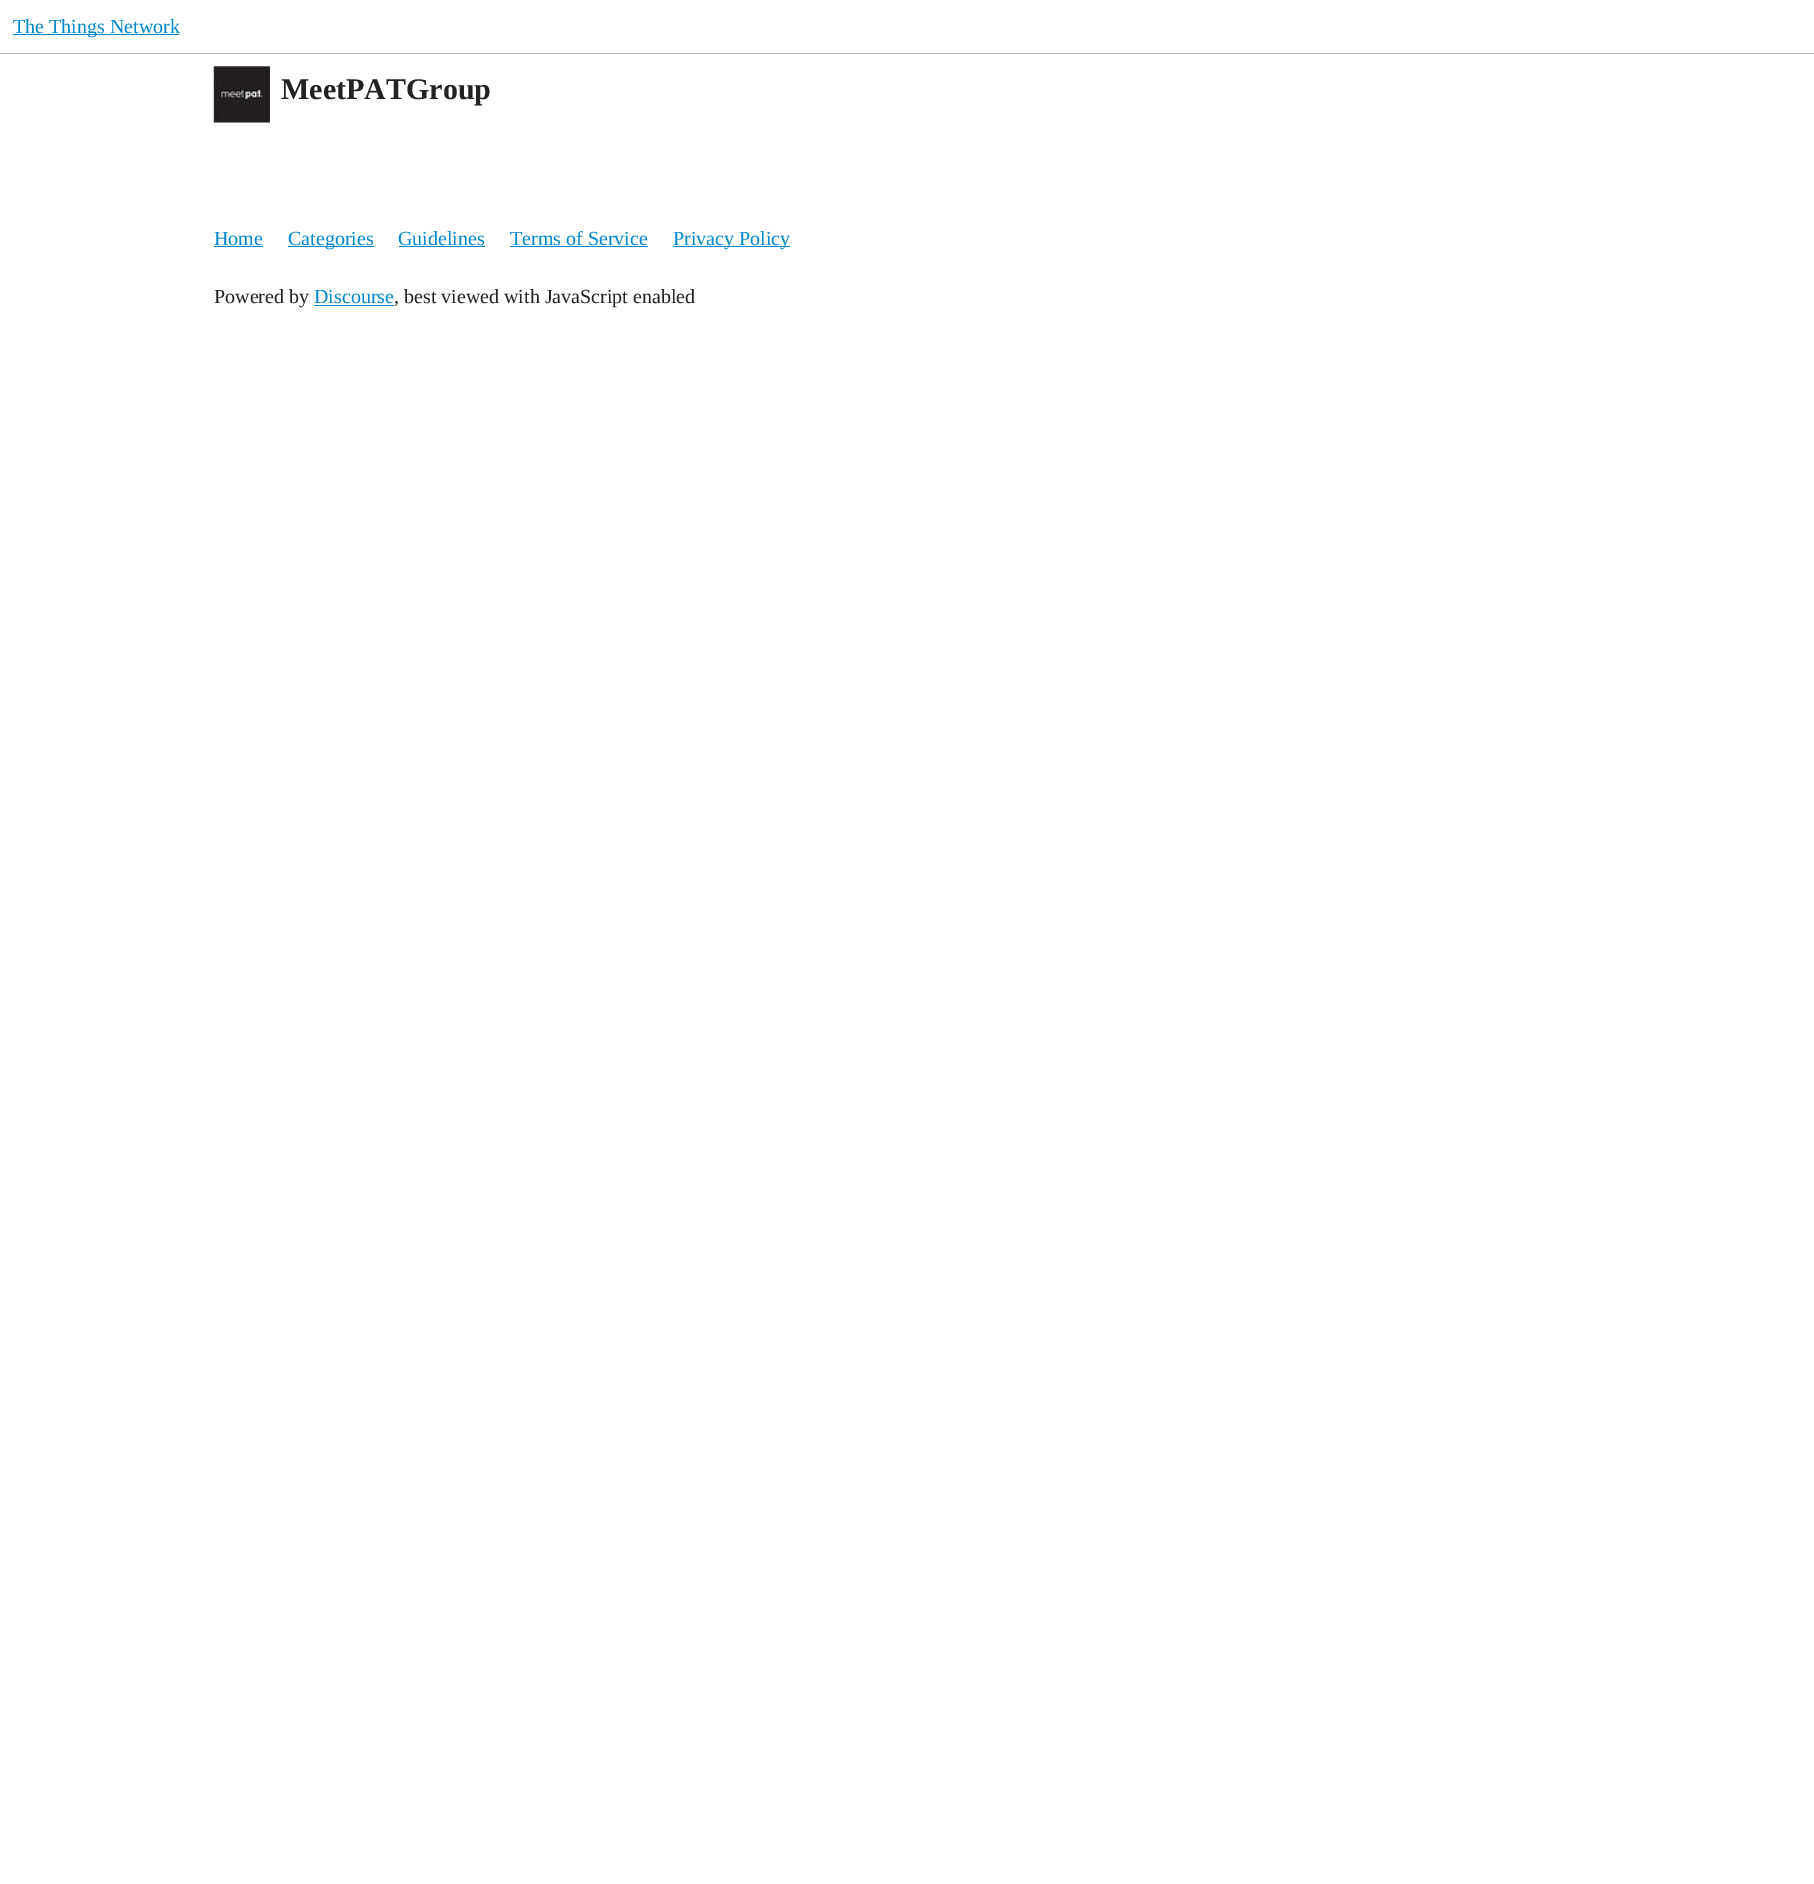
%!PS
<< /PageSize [1814 1884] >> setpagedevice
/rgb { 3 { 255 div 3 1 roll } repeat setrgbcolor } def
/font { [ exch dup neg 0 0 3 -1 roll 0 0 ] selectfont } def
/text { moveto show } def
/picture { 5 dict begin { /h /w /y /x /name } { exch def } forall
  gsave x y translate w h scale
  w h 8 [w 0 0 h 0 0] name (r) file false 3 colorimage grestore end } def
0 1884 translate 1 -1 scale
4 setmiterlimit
255 255 255 rgb
0 0 1814 1884 rectfill
175 175 175 rgb
0 53 1814 1 rectfill
0 136 204 rgb
13 34 166 1 rectfill
(img_01.rgb) 213 66 57 57 picture
214 246 49 1 rectfill
288 246 86 1 rectfill
399 246 86 1 rectfill
510 246 138 1 rectfill
673 246 117 1 rectfill
314 305 80 1 rectfill
/LiberationSerif-Regular 20 font
(The Things Network) 13 33 text
/LiberationSerif-Bold 30 font
34 34 34 rgb
(MeetPATGroup) 281 99 text
/LiberationSerif-Regular 20 font
0 136 204 rgb
(Home) 214 245 text
(Categories) 288 245 text
(Guidelines) 398 245 text
(Terms of Service) 510 245 text
(Privacy Policy) 673 245 text
34 34 34 rgb
(Powered by) 214 303 text
0 136 204 rgb
(Discourse) 314 303 text
34 34 34 rgb
(, best viewed with JavaScript enabled) 394 303 text
showpage
